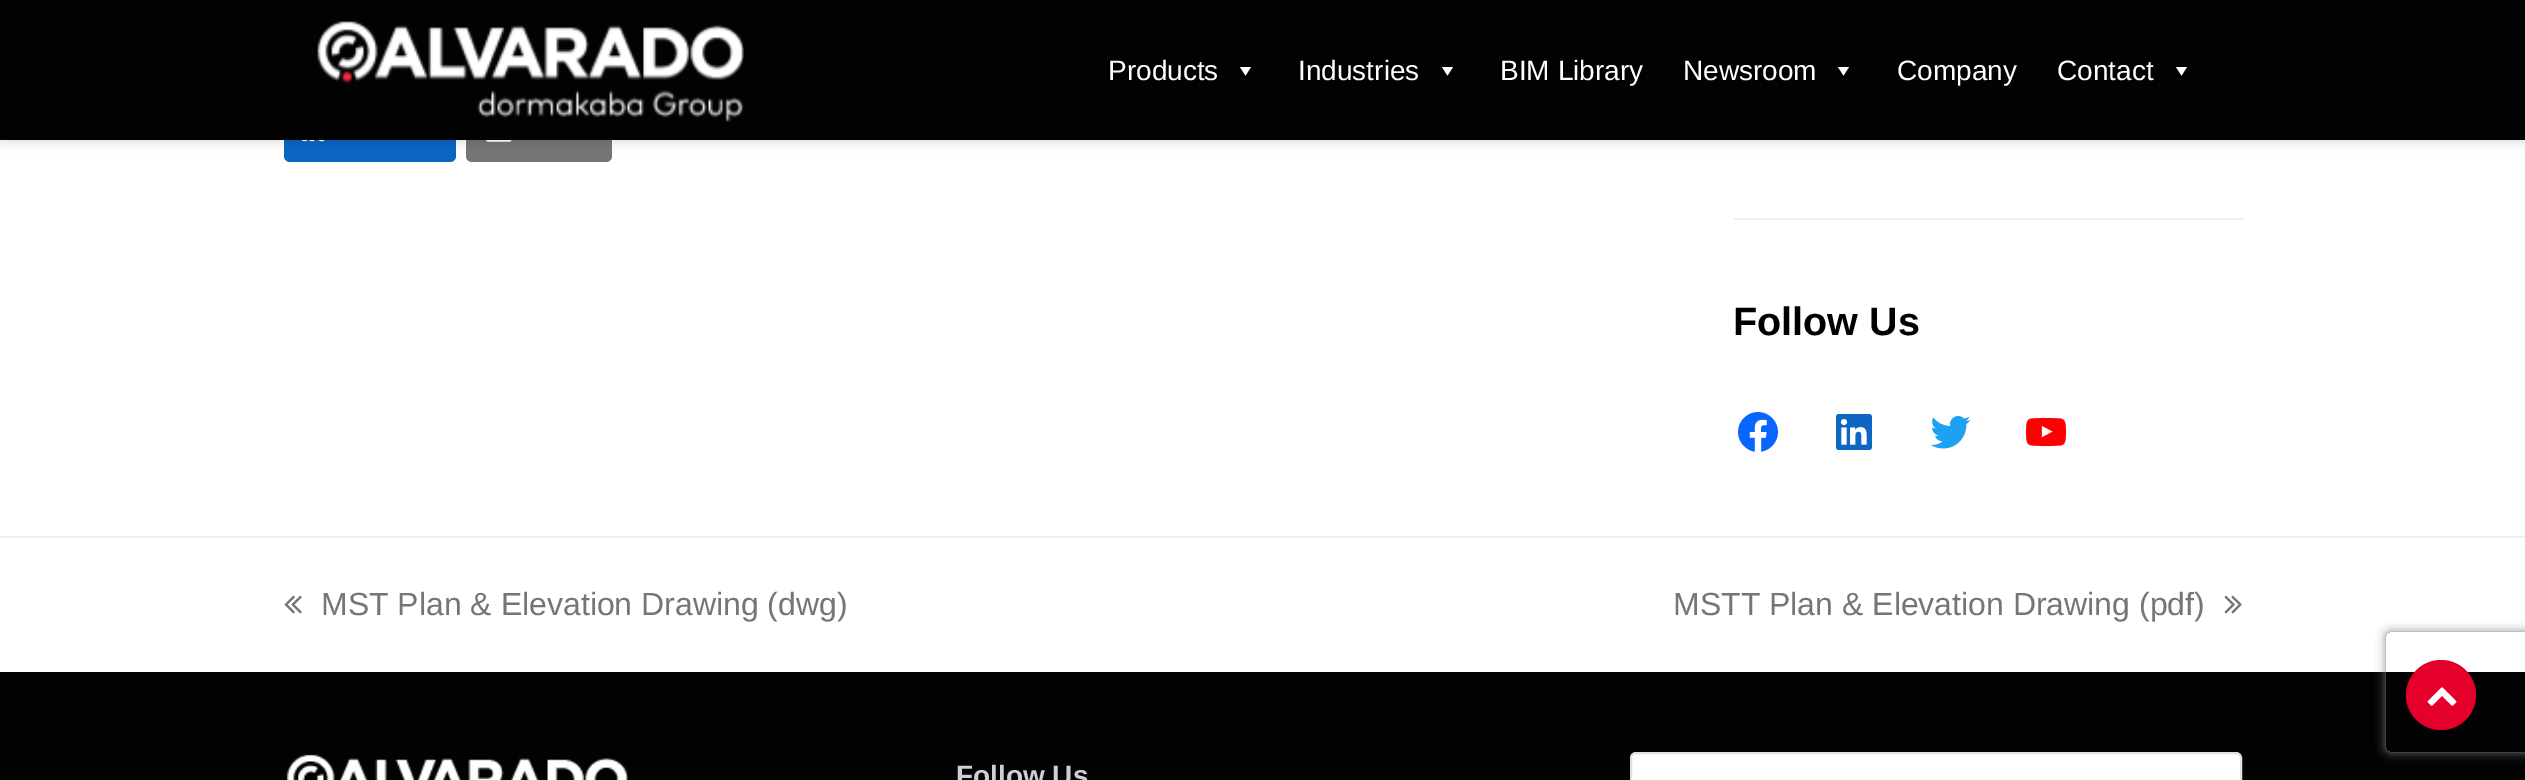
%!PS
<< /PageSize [2525 780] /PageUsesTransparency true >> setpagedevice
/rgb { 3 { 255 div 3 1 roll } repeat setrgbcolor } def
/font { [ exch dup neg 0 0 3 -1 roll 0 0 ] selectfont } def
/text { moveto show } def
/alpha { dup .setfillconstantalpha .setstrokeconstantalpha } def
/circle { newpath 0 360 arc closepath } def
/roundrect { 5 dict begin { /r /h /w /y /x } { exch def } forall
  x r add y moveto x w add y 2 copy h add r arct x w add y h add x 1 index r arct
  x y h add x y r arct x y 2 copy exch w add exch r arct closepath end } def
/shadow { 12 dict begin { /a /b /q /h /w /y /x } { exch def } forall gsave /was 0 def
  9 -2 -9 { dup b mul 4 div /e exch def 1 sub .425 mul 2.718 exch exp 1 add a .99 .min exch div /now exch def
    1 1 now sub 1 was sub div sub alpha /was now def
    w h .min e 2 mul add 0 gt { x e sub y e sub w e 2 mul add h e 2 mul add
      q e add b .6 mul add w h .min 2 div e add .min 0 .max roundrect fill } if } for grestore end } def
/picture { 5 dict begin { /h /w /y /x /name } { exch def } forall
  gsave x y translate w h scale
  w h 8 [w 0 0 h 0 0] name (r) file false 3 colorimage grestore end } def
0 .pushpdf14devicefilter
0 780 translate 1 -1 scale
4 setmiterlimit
255 255 255 rgb
0 0 2525 780 rectfill
10 102 194 rgb
284 102 172 60 6 roundrect fill
(img_02.rgb) 302 140 22 2 picture
117 117 117 rgb
466 102 146 60 6 roundrect fill
(img_03.rgb) 486 140 26 2 picture
0 0 0 rgb
0 4 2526 140 0 5 0.1 shadow
2 2 2 rgb
0 0 2525 140 rectfill
(img_01.rgb) 317 21 427 101 picture
255 255 255 rgb
1251 67 moveto -5.5 8.5 rlineto -5.5 -8.5 rlineto closepath fill
1453 67 moveto -5.5 8.5 rlineto -5.5 -8.5 rlineto closepath fill
1849 67 moveto -5.5 8.5 rlineto -5.5 -8.5 rlineto closepath fill
2187 67 moveto -5.5 8.5 rlineto -5.5 -8.5 rlineto closepath fill
238 238 238 rgb
1734 218 510 2 rectfill
(img_04.rgb) 1738 412 40 40 picture
(img_05.rgb) 1836 414 36 36 picture
(img_06.rgb) 1930 416 41 33 picture
(img_07.rgb) 2026 417 40 30 picture
0 536 2525 2 rectfill
(img_08.rgb) 284 595 18 19 picture
(img_09.rgb) 2224 595 18 19 picture
2 2 2 rgb
0 672 2525 108 rectfill
(img_10.rgb) 286 754 342 26 picture
255 255 255 rgb
1631 753 610 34 5 roundrect gsave fill grestore
224 224 224 rgb
2 setlinewidth
stroke
gsave
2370 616 moveto 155 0 rlineto 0 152 rlineto -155 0 rlineto closepath 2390 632 moveto 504 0 rlineto 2 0 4 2 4 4 rcurveto 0 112 rlineto 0 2 -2 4 -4 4 rcurveto -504 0 rlineto -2 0 -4 -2 -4 -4 rcurveto 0 -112 rlineto 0 -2 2 -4 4 -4 rcurveto closepath eoclip newpath
128 128 128 rgb
2386 632 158 120 4 5 1 shadow
grestore
228 0 43 rgb
2441 695 35 circle fill
(img_11.rgb) 2427 687 30 19 picture
/LiberationSans-Regular 28 font
255 255 255 rgb
(Products) 1108 80 text
(Industries) 1298 80 text
(BIM Library) 1500 80 text
(Newsroom) 1683 80 text
(Company) 1897 80 text
(Contact) 2057 80 text
/LiberationSans-Bold 39.5 font
0 0 0 rgb
(Follow Us) 1733 335 text
/LiberationSans-Regular 32 font
117 117 117 rgb
(MST Plan & Elevation Drawing \(dwg\)) 321 615 text
(MSTT Plan & Elevation Drawing \(pdf\)) 1673 615 text
/LiberationSans-Bold 28 font
204 208 213 rgb
(Follow Us) 956 785 text
.poppdf14devicefilter showpage
